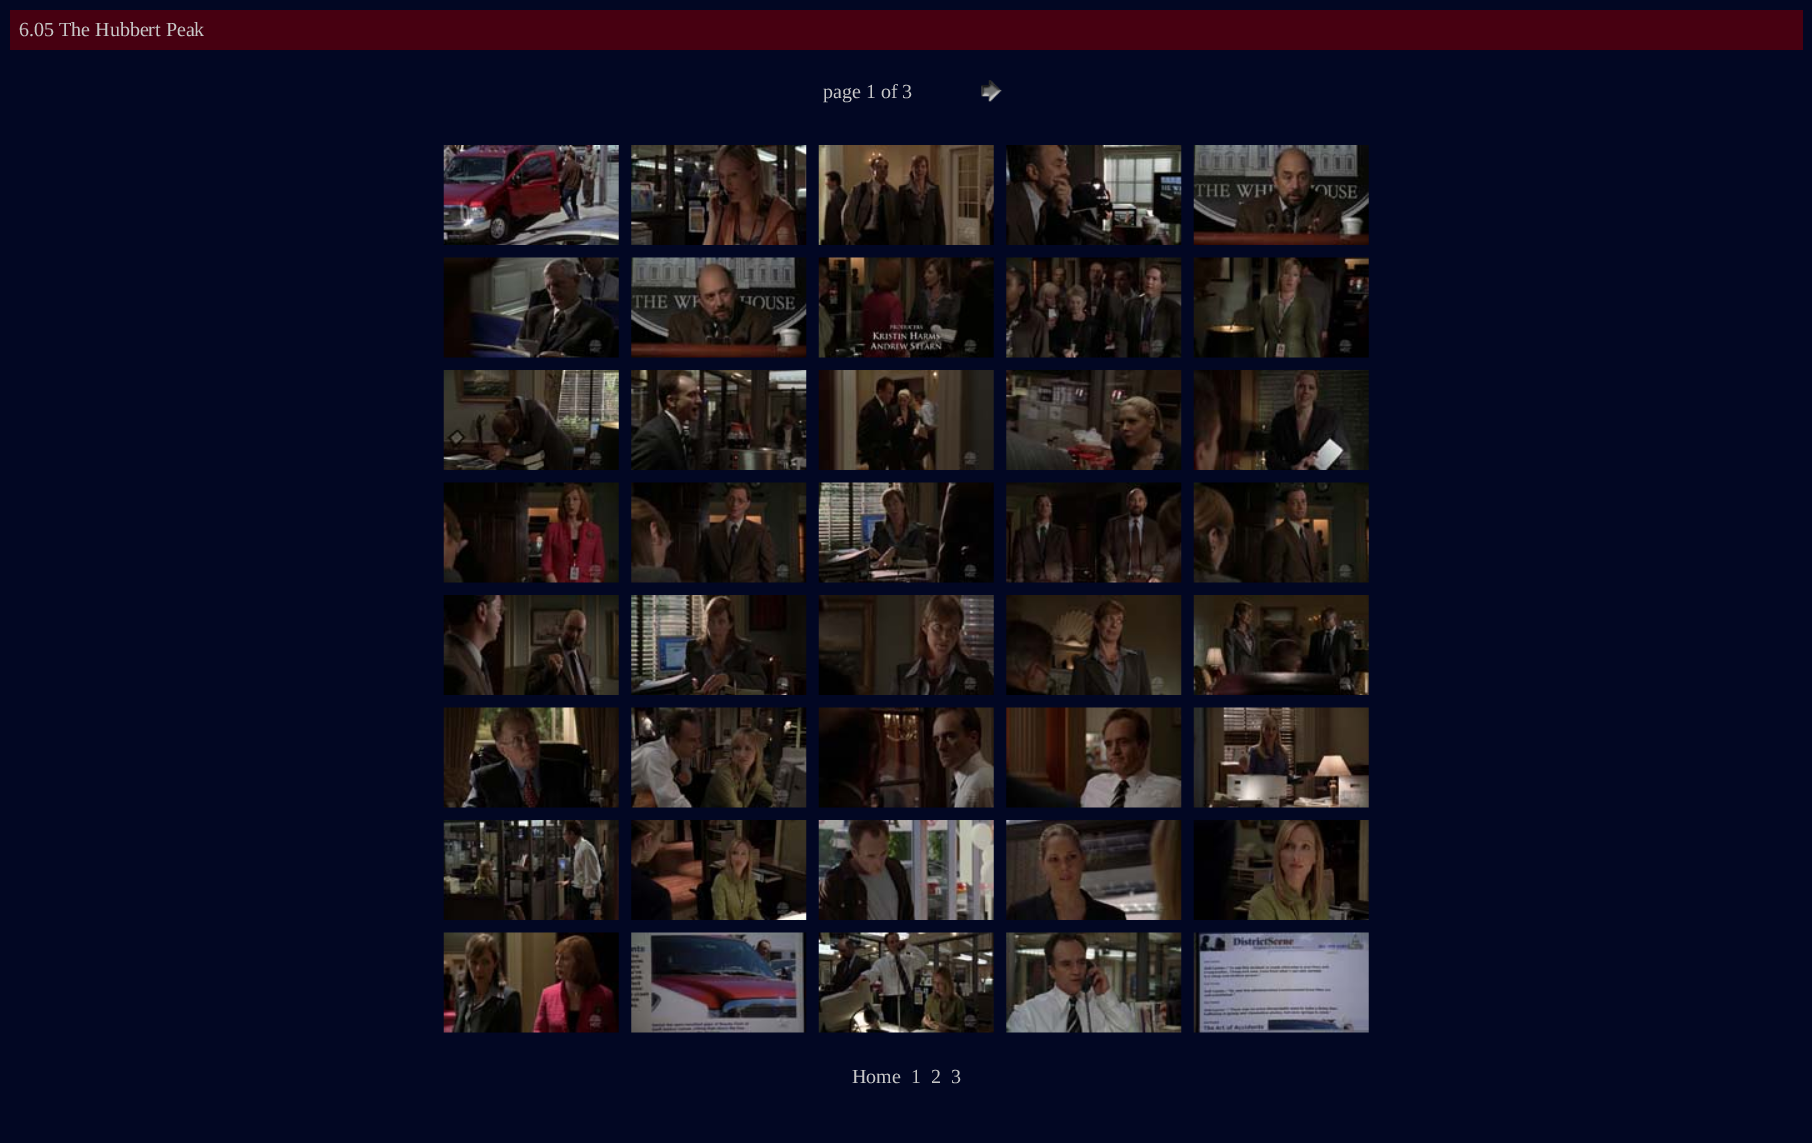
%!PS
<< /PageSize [1812 1143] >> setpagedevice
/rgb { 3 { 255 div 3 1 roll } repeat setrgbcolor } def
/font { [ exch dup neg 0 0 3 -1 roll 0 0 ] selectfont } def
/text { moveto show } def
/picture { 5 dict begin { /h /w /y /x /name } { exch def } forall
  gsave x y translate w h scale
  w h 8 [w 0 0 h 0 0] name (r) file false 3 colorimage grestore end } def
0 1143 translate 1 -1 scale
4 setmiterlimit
2 7 35 rgb
0 0 1812 1143 rectfill
71 0 17 rgb
10 10 1793 40 rectfill
(img_01.rgb) 981 80 21 22 picture
(img_02.rgb) 443 145 176 100 picture
(img_03.rgb) 631 145 176 100 picture
(img_04.rgb) 818 145 176 100 picture
(img_05.rgb) 1006 145 176 100 picture
(img_06.rgb) 1193 145 176 100 picture
(img_07.rgb) 443 257 176 101 picture
(img_08.rgb) 631 257 176 101 picture
(img_09.rgb) 818 257 176 101 picture
(img_10.rgb) 1006 257 176 101 picture
(img_11.rgb) 1193 257 176 101 picture
(img_12.rgb) 443 370 176 100 picture
(img_13.rgb) 631 370 176 100 picture
(img_14.rgb) 818 370 176 100 picture
(img_15.rgb) 1006 370 176 100 picture
(img_16.rgb) 1193 370 176 100 picture
(img_17.rgb) 443 482 176 101 picture
(img_18.rgb) 631 482 176 101 picture
(img_19.rgb) 818 482 176 101 picture
(img_20.rgb) 1006 482 176 101 picture
(img_21.rgb) 1193 482 176 101 picture
(img_22.rgb) 443 595 176 100 picture
(img_23.rgb) 631 595 176 100 picture
(img_24.rgb) 818 595 176 100 picture
(img_25.rgb) 1006 595 176 100 picture
(img_26.rgb) 1193 595 176 100 picture
(img_27.rgb) 443 707 176 101 picture
(img_28.rgb) 631 707 176 101 picture
(img_29.rgb) 818 707 176 101 picture
(img_30.rgb) 1006 707 176 101 picture
(img_31.rgb) 1193 707 176 101 picture
(img_32.rgb) 443 820 176 100 picture
(img_33.rgb) 631 820 176 100 picture
(img_34.rgb) 818 820 176 100 picture
(img_35.rgb) 1006 820 176 100 picture
(img_36.rgb) 1193 820 176 100 picture
(img_37.rgb) 443 932 176 101 picture
(img_38.rgb) 631 932 176 101 picture
(img_39.rgb) 818 932 176 101 picture
(img_40.rgb) 1006 932 176 101 picture
(img_41.rgb) 1193 932 176 101 picture
/LiberationSerif-Regular 20 font
200 200 200 rgb
(6.05 The Hubbert Peak) 19 36 text
(page 1 of 3) 823 98 text
(Home) 852 1083 text
(1) 911 1083 text
(2) 931 1083 text
(3) 951 1083 text
showpage
